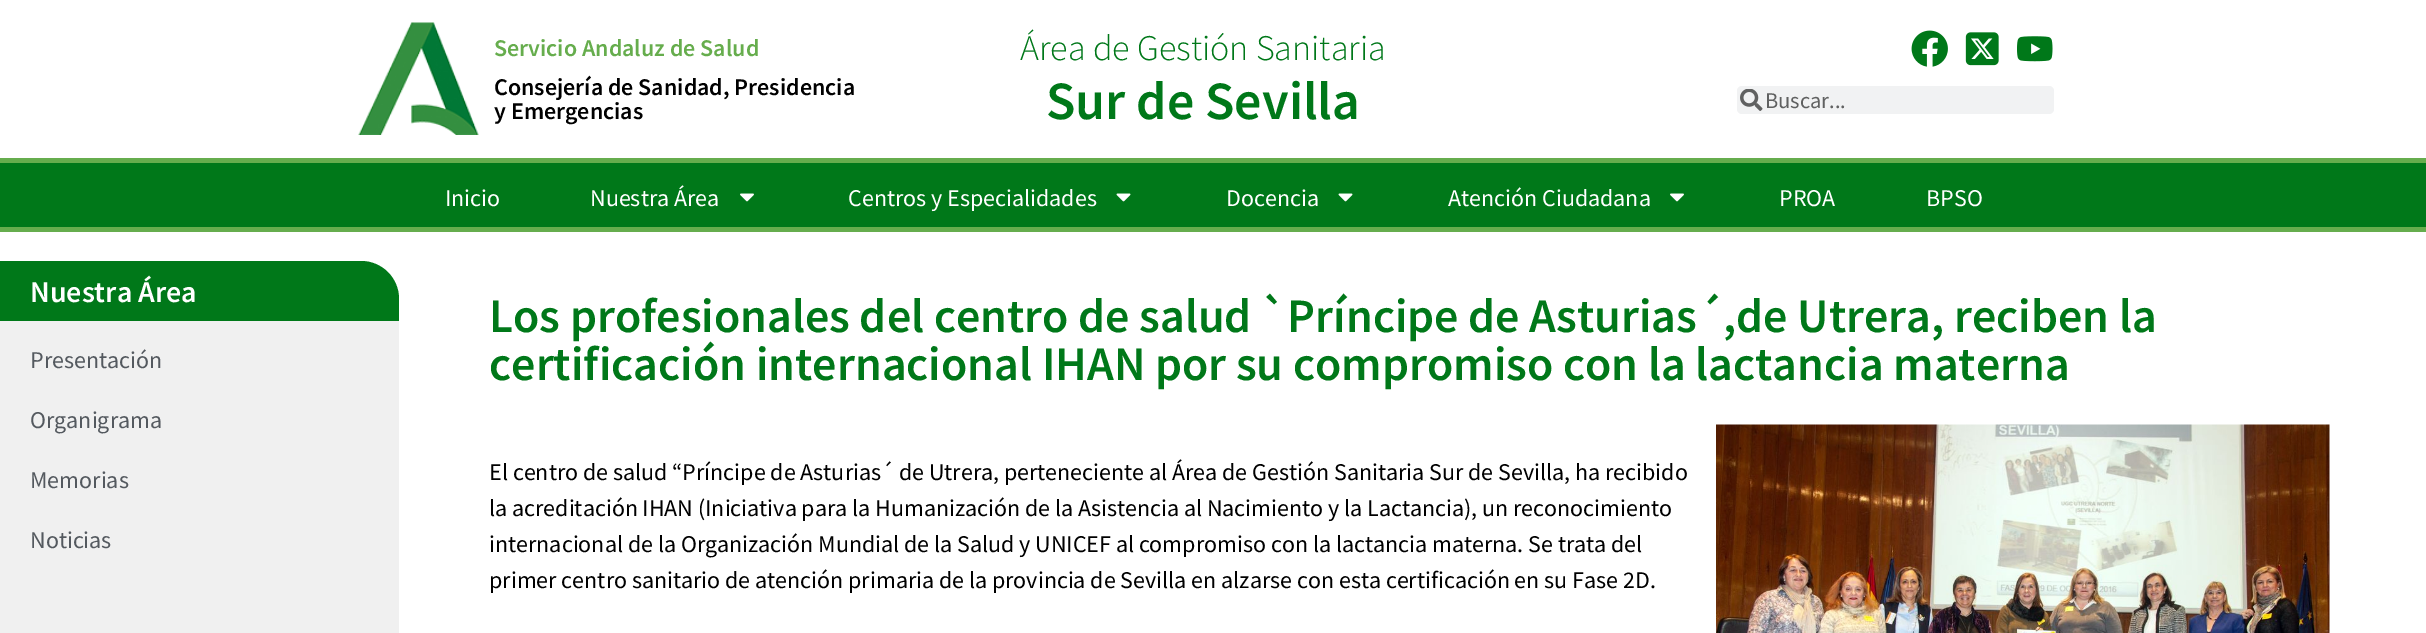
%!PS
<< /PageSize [2426 633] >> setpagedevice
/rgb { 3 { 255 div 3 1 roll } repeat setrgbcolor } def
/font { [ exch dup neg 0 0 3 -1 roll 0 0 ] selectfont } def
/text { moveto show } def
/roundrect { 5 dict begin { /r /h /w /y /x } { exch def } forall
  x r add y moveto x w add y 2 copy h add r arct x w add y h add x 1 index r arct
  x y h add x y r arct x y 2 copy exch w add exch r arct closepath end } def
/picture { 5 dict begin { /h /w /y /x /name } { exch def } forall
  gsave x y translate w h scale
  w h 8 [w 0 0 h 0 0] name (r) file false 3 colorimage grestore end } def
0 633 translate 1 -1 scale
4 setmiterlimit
255 255 255 rgb
0 0 2426 633 rectfill
(img_01.rgb) 358 22 121 113 picture
(img_02.rgb) 1911 30 37 37 picture
(img_03.rgb) 1965 32 34 34 picture
(img_04.rgb) 2017 36 36 26 picture
241 242 243 rgb
1737 86 317 28 5 roundrect fill
(img_05.rgb) 1740 89 23 22 picture
0 120 25 rgb
0 163 2426 64 rectfill
102 173 77 rgb
0 158 2426 5 rectfill
0 227 2426 5 rectfill
(img_06.rgb) 740 193 14 9 picture
(img_07.rgb) 1116 193 15 9 picture
(img_07.rgb) 1338 193 15 9 picture
(img_06.rgb) 1670 193 14 9 picture
240 240 240 rgb
0 261 moveto 354 0 rlineto 25 0 45 20 45 45 rcurveto 0 327 rlineto 0 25 -20 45 -45 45 rcurveto -354 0 rlineto closepath fill
0 120 25 rgb
0 261 moveto 361 0 rlineto 21 0 38 17 38 38 rcurveto 0 22 rlineto -399 0 rlineto closepath fill
(img_08.rgb) 1716 424 614 209 picture
/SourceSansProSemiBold-SemiBold 24 font
102 173 77 rgb
(Servicio Andaluz de Salud) 494 56 text
0 0 0 rgb
(Consejería de Sanidad, Presidencia) 494 95 text
(y Emergencias) 494 119 text
/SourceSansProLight-Light 36 font
0 120 25 rgb
(Área de Gestión Sanitaria) 1020 60 text
/SourceSansProSemiBold-SemiBold 54 font
(Sur de Sevilla) 1046 119 text
/SourceSansPro-Regular 22.5 font
96 97 97 rgb
(Buscar...) 1765 108 text
/SourceSansPro-Regular 24 font
255 255 255 rgb
(Inicio) 445 206 text
(Nuestra Área) 590 206 text
(Centros y Especialidades) 848 206 text
(Docencia) 1226 206 text
(Atención Ciudadana) 1448 206 text
(PROA) 1779 206 text
(BPSO) 1926 206 text
/SourceSansProSemiBold-SemiBold 30 font
(Nuestra Área) 30 302 text
/SourceSansPro-Regular 24 font
84 89 95 rgb
(Presentación) 30 368 text
(Organigrama) 30 428 text
(Memorias) 30 488 text
(Noticias) 30 548 text
/SourceSansProSemiBold-SemiBold 48 font
0 120 25 rgb
(Los profesionales del centro de salud `Príncipe de Asturias´,de Utrera, reciben la) 489 332 text
(certificación internacional IHAN por su compromiso con la lactancia materna) 489 380 text
/SourceSansPro-Regular 24 font
0 0 0 rgb
(El centro de salud “Príncipe de Asturias´ de Utrera, perteneciente al Área de Gestión Sanitaria Sur de Sevilla, ha recibido) 489 480 text
(la acreditación IHAN \(Iniciativa para la Humanización de la Asistencia al Nacimiento y la Lactancia\), un reconocimiento) 489 516 text
(internacional de la Organización Mundial de la Salud y UNICEF al compromiso con la lactancia materna. Se trata del) 489 552 text
(primer centro sanitario de atención primaria de la provincia de Sevilla en alzarse con esta certificación en su Fase 2D.) 489 588 text
showpage
